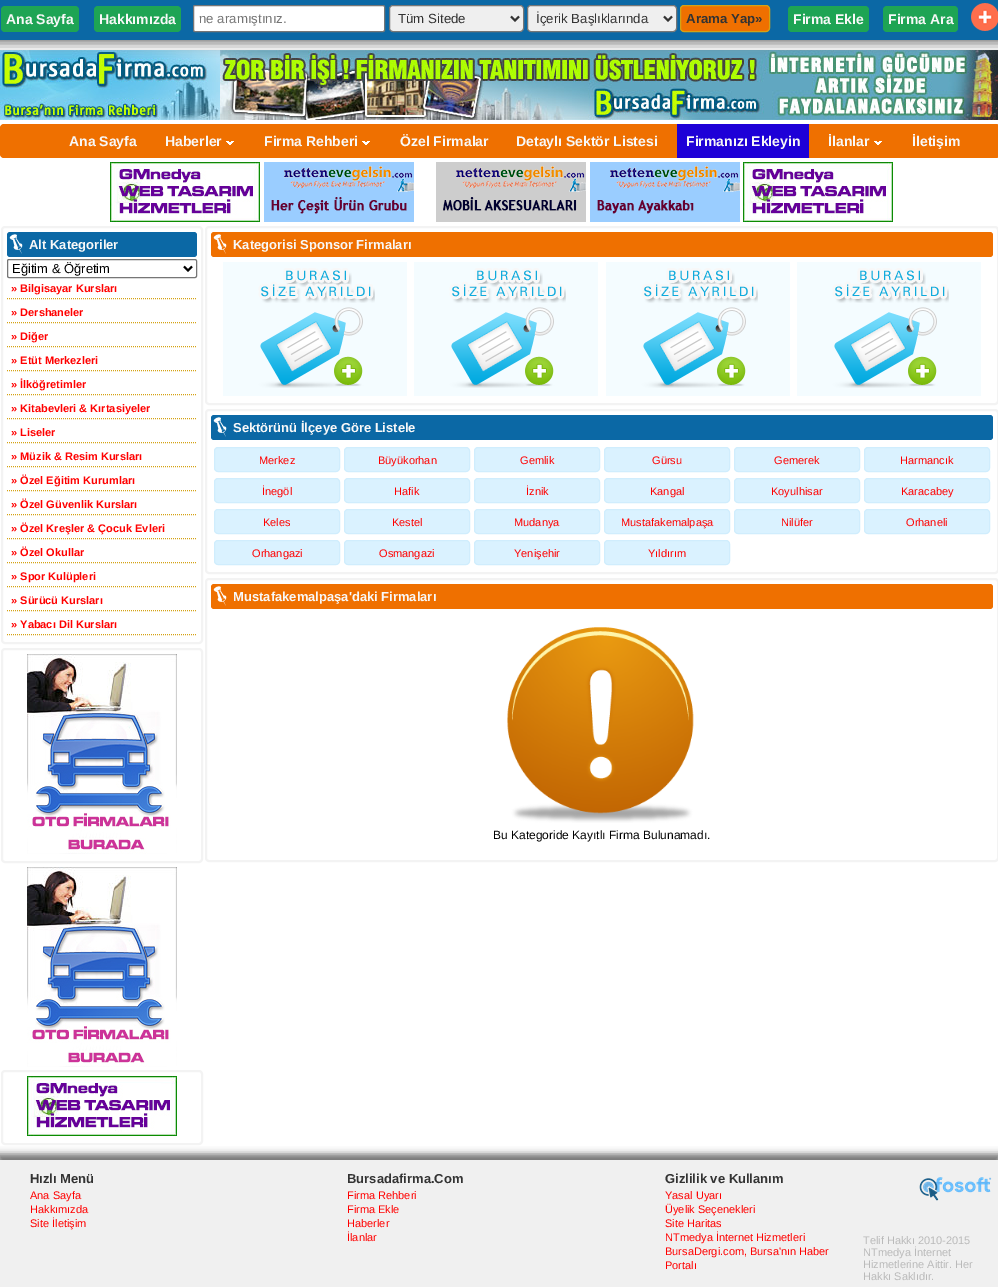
%!PS
<< /PageSize [998 1287] /PageUsesTransparency true >> setpagedevice
/rgb { 3 { 255 div 3 1 roll } repeat setrgbcolor } def
/font { [ exch dup neg 0 0 3 -1 roll 0 0 ] selectfont } def
/text { moveto show } def
/alpha { dup .setfillconstantalpha .setstrokeconstantalpha } def
/roundrect { 5 dict begin { /r /h /w /y /x } { exch def } forall
  x r add y moveto x w add y 2 copy h add r arct x w add y h add x 1 index r arct
  x y h add x y r arct x y 2 copy exch w add exch r arct closepath end } def
/shadow { 12 dict begin { /a /b /q /h /w /y /x } { exch def } forall gsave /was 0 def
  9 -2 -9 { dup b mul 4 div /e exch def 1 sub .425 mul 2.718 exch exp 1 add a .99 .min exch div /now exch def
    1 1 now sub 1 was sub div sub alpha /was now def
    w h .min e 2 mul add 0 gt { x e sub y e sub w e 2 mul add h e 2 mul add
      q e add b .6 mul add w h .min 2 div e add .min 0 .max roundrect fill } if } for grestore end } def
/picture { 5 dict begin { /h /w /y /x /name } { exch def } forall
  gsave x y translate w h scale
  w h 8 [w 0 0 h 0 0] name (r) file false 3 colorimage grestore end } def
0 .pushpdf14devicefilter
0 1287 translate 1 -1 scale
4 setmiterlimit
255 255 255 rgb
0 0 998 1287 rectfill
(img_02.rgb) 0 50 220 70 picture
(img_03.rgb) 220 50 778 70 picture
114 114 114 rgb
-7 -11 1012 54 0 6.5 1 shadow
11 104 165 rgb
0 0 998 40 rectfill
30 164 84 rgb
1 6 78 26 4 roundrect fill
94 6 87 26 4 roundrect fill
255 255 255 rgb
193.5 5.5 191 26 1.5 roundrect gsave fill grestore
118 118 118 rgb
stroke
239 239 239 rgb
389.5 5.5 134 26 3.5 roundrect gsave fill grestore
118 118 118 rgb
stroke
51 51 51 rgb
2 setlinewidth
511 16.5 moveto 4 4 rlineto 4 -4 rlineto stroke
239 239 239 rgb
527.5 5.5 149 26 3.5 roundrect gsave fill grestore
118 118 118 rgb
1 setlinewidth
stroke
51 51 51 rgb
2 setlinewidth
664 16.5 moveto 4 4 rlineto 4 -4 rlineto stroke
239 112 0 rgb
680.5 5.5 89 26 3.5 roundrect gsave fill grestore
213 162 20 rgb
1 setlinewidth
stroke
30 164 84 rgb
788 6 81 26 4 roundrect fill
883 6 75 26 4 roundrect fill
(img_01.rgb) 971 3 27 28 picture
239 112 0 rgb
0 124 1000 34 4 roundrect fill
(img_04.rgb) 226 141 8 4 picture
(img_04.rgb) 362 141 8 4 picture
30 0 215 rgb
677 124 132 34 rectfill
(img_04.rgb) 874 141 8 4 picture
(img_05.rgb) 110 162 150 60 picture
(img_06.rgb) 264 162 150 60 picture
(img_07.rgb) 436 162 150 60 picture
(img_08.rgb) 590 162 150 60 picture
(img_05.rgb) 743 162 150 60 picture
243 243 243 rgb
2 setlinewidth
2 227 200 416 3 roundrect stroke
11 104 165 rgb
7 232 190 25 3 roundrect fill
(img_09.rgb) 9 234 14 20 picture
118 118 118 rgb
1 setlinewidth
7.5 259.5 189 18 1.5 roundrect stroke
0 0 0 rgb
2 setlinewidth
184 266.5 moveto 4 4 rlineto 4 -4 rlineto stroke
213 162 20 rgb
1 setlinewidth
[1 1] 0 setdash
7 298.5 moveto 190 0 rlineto stroke
7 322.5 moveto 190 0 rlineto stroke
7 346.5 moveto 190 0 rlineto stroke
7 370.5 moveto 190 0 rlineto stroke
7 394.5 moveto 190 0 rlineto stroke
7 418.5 moveto 190 0 rlineto stroke
7 442.5 moveto 190 0 rlineto stroke
7 466.5 moveto 190 0 rlineto stroke
7 490.5 moveto 190 0 rlineto stroke
7 514.5 moveto 190 0 rlineto stroke
7 538.5 moveto 190 0 rlineto stroke
7 562.5 moveto 190 0 rlineto stroke
7 586.5 moveto 190 0 rlineto stroke
7 610.5 moveto 190 0 rlineto stroke
7 634.5 moveto 190 0 rlineto stroke
243 243 243 rgb
2 setlinewidth
[] 0 setdash
2 649 200 213 3 roundrect stroke
(img_10.rgb) 27 654 150 200 picture
(img_10.rgb) 27 867 150 200 picture
2 1071 200 73 3 roundrect stroke
(img_05.rgb) 27 1076 150 60 picture
206 227 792 177 3 roundrect stroke
239 112 0 rgb
211 232 782 25 3 roundrect fill
(img_11.rgb) 213 234 14 20 picture
244 252 255 rgb
223 262 184 134 rectfill
(img_12.rgb) 258 268 117 120 picture
414 262 184 134 rectfill
(img_12.rgb) 449 268 117 120 picture
606 262 184 134 rectfill
(img_12.rgb) 641 268 117 120 picture
797 262 184 134 rectfill
(img_12.rgb) 832 268 117 120 picture
243 243 243 rgb
206 410 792 163 3 roundrect stroke
11 104 165 rgb
211 415 782 25 3 roundrect fill
(img_09.rgb) 213 417 14 20 picture
218 242 255 rgb
214.5 447.5 125 24 3.5 roundrect gsave fill grestore
208 237 253 rgb
1 setlinewidth
stroke
218 242 255 rgb
344.5 447.5 125 24 3.5 roundrect gsave fill grestore
208 237 253 rgb
stroke
218 242 255 rgb
474.5 447.5 125 24 3.5 roundrect gsave fill grestore
208 237 253 rgb
stroke
218 242 255 rgb
604.5 447.5 125 24 3.5 roundrect gsave fill grestore
208 237 253 rgb
stroke
218 242 255 rgb
734.5 447.5 125 24 3.5 roundrect gsave fill grestore
208 237 253 rgb
stroke
218 242 255 rgb
864.5 447.5 125 24 3.5 roundrect gsave fill grestore
208 237 253 rgb
stroke
218 242 255 rgb
214.5 478.5 125 24 3.5 roundrect gsave fill grestore
208 237 253 rgb
stroke
218 242 255 rgb
344.5 478.5 125 24 3.5 roundrect gsave fill grestore
208 237 253 rgb
stroke
218 242 255 rgb
474.5 478.5 125 24 3.5 roundrect gsave fill grestore
208 237 253 rgb
stroke
218 242 255 rgb
604.5 478.5 125 24 3.5 roundrect gsave fill grestore
208 237 253 rgb
stroke
218 242 255 rgb
734.5 478.5 125 24 3.5 roundrect gsave fill grestore
208 237 253 rgb
stroke
218 242 255 rgb
864.5 478.5 125 24 3.5 roundrect gsave fill grestore
208 237 253 rgb
stroke
218 242 255 rgb
214.5 509.5 125 24 3.5 roundrect gsave fill grestore
208 237 253 rgb
stroke
218 242 255 rgb
344.5 509.5 125 24 3.5 roundrect gsave fill grestore
208 237 253 rgb
stroke
218 242 255 rgb
474.5 509.5 125 24 3.5 roundrect gsave fill grestore
208 237 253 rgb
stroke
218 242 255 rgb
604.5 509.5 125 24 3.5 roundrect gsave fill grestore
208 237 253 rgb
stroke
218 242 255 rgb
734.5 509.5 125 24 3.5 roundrect gsave fill grestore
208 237 253 rgb
stroke
218 242 255 rgb
864.5 509.5 125 24 3.5 roundrect gsave fill grestore
208 237 253 rgb
stroke
218 242 255 rgb
214.5 540.5 125 24 3.5 roundrect gsave fill grestore
208 237 253 rgb
stroke
218 242 255 rgb
344.5 540.5 125 24 3.5 roundrect gsave fill grestore
208 237 253 rgb
stroke
218 242 255 rgb
474.5 540.5 125 24 3.5 roundrect gsave fill grestore
208 237 253 rgb
stroke
218 242 255 rgb
604.5 540.5 125 24 3.5 roundrect gsave fill grestore
208 237 253 rgb
stroke
243 243 243 rgb
2 setlinewidth
206 579 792 282 3 roundrect stroke
239 112 0 rgb
211 584 782 25 3 roundrect fill
(img_11.rgb) 213 586 14 20 picture
(img_13.rgb) 507 627 187 196 picture
114 114 114 rgb
-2 1154 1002 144 0 3.5 1 shadow
240 240 240 rgb
0 1160 998 127 rectfill
(img_14.rgb) 919 1177 73 24 picture
/LiberationSans-Bold 14 font
248 248 248 rgb
(Ana Sayfa) 6 24 text
(Hakkımızda) 99 24 text
/LiberationSans-Regular 13.25 font
117 117 117 rgb
(ne aramıştınız.) 199 23 text
51 51 51 rgb
(Tüm Sitede) 398 23 text
(İçerik Başlıklarında) 536 23 text
/LiberationSans-Bold 13.25 font
(Arama Yap») 686 23 text
/LiberationSans-Bold 14 font
248 248 248 rgb
(Firma Ekle) 793 24 text
(Firma Ara) 888 24 text
(Ana Sayfa) 69 146 text
(Haberler) 165 146 text
(Firma Rehberi) 264 146 text
(Özel Firmalar) 400 146 text
(Detaylı Sektör Listesi) 516 146 text
(Firmanızı Ekleyin) 686 146 text
(İlanlar) 828 146 text
(İletişim) 912 146 text
/LiberationSans-Bold 13 font
(Alt Kategoriler) 29 249 text
/LiberationSans-Regular 13 font
0 0 0 rgb
(Eğitim & Öğretim) 12 273 text
/LiberationSans-Bold 11 font
255 0 0 rgb
(» Bilgisayar Kursları) 11 292 text
(» Dershaneler) 11 316 text
(» Diğer) 11 340 text
(» Etüt Merkezleri) 11 364 text
(» İlköğretimler) 11 388 text
(» Kitabevleri & Kırtasiyeler) 11 412 text
(» Liseler) 11 436 text
(» Müzik & Resim Kursları) 11 460 text
(» Özel Eğitim Kurumları) 11 484 text
(» Özel Güvenlik Kursları) 11 508 text
(» Özel Kreşler & Çocuk Evleri) 11 532 text
(» Özel Okullar) 11 556 text
(» Spor Kulüpleri) 11 580 text
(» Sürücü Kursları) 11 604 text
(» Yabacı Dil Kursları) 11 628 text
/LiberationSans-Bold 13 font
248 248 248 rgb
(Kategorisi Sponsor Firmaları) 233 249 text
(Sektörünü İlçeye Göre Listele) 233 432 text
/LiberationSans-Regular 11 font
255 0 0 rgb
(Merkez) 259 464 text
(Büyükorhan) 378 464 text
(Gemlik) 520 464 text
(Gürsu) 652 464 text
(Gemerek) 774 464 text
(Harmancık) 900 464 text
(İnegöl) 262 495 text
(Hafik) 394 495 text
(İznik) 526 495 text
(Kangal) 650 495 text
(Koyulhisar) 771 495 text
(Karacabey) 901 495 text
(Keles) 263 526 text
(Kestel) 392 526 text
(Mudanya) 514 526 text
(Mustafakemalpaşa) 621 526 text
(Nilüfer) 781 526 text
(Orhaneli) 906 526 text
(Orhangazi) 252 557 text
(Osmangazi) 379 557 text
(Yenişehir) 514 557 text
(Yıldırım) 648 557 text
/LiberationSans-Bold 13 font
248 248 248 rgb
(Mustafakemalpaşa'daki Firmaları) 233 601 text
/LiberationSans-Regular 12 font
0 0 0 rgb
(Bu Kategoride Kayıtlı Firma Bulunamadı.) 493 839 text
/LiberationSans-Bold 13 font
51 51 51 rgb
(Hızlı Menü) 30 1183 text
/LiberationSans-Regular 11 font
255 0 0 rgb
(Ana Sayfa) 30 1199 text
(Hakkımızda) 30 1213 text
(Site İletişim) 30 1227 text
/LiberationSans-Bold 13 font
51 51 51 rgb
(Bursadafirma.Com) 347 1183 text
/LiberationSans-Regular 11 font
255 0 0 rgb
(Firma Rehberi) 347 1199 text
(Firma Ekle) 347 1213 text
(Haberler) 347 1227 text
(İlanlar) 347 1241 text
/LiberationSans-Bold 13 font
51 51 51 rgb
(Gizlilik ve Kullanım) 665 1183 text
/LiberationSans-Regular 11 font
255 0 0 rgb
(Yasal Uyarı) 665 1199 text
(Üyelik Seçenekleri) 665 1213 text
(Site Haritas) 665 1227 text
(NTmedya İnternet Hizmetleri) 665 1241 text
(BursaDergi.com, Bursa'nın Haber) 665 1255 text
(Portalı) 665 1269 text
186 186 186 rgb
(Telif Hakkı 2010-2015) 863 1244 text
(NTmedya İnternet) 863 1256 text
(Hizmetlerine Aittir. Her) 863 1268 text
(Hakkı Saklıdır.) 863 1280 text
.poppdf14devicefilter showpage
